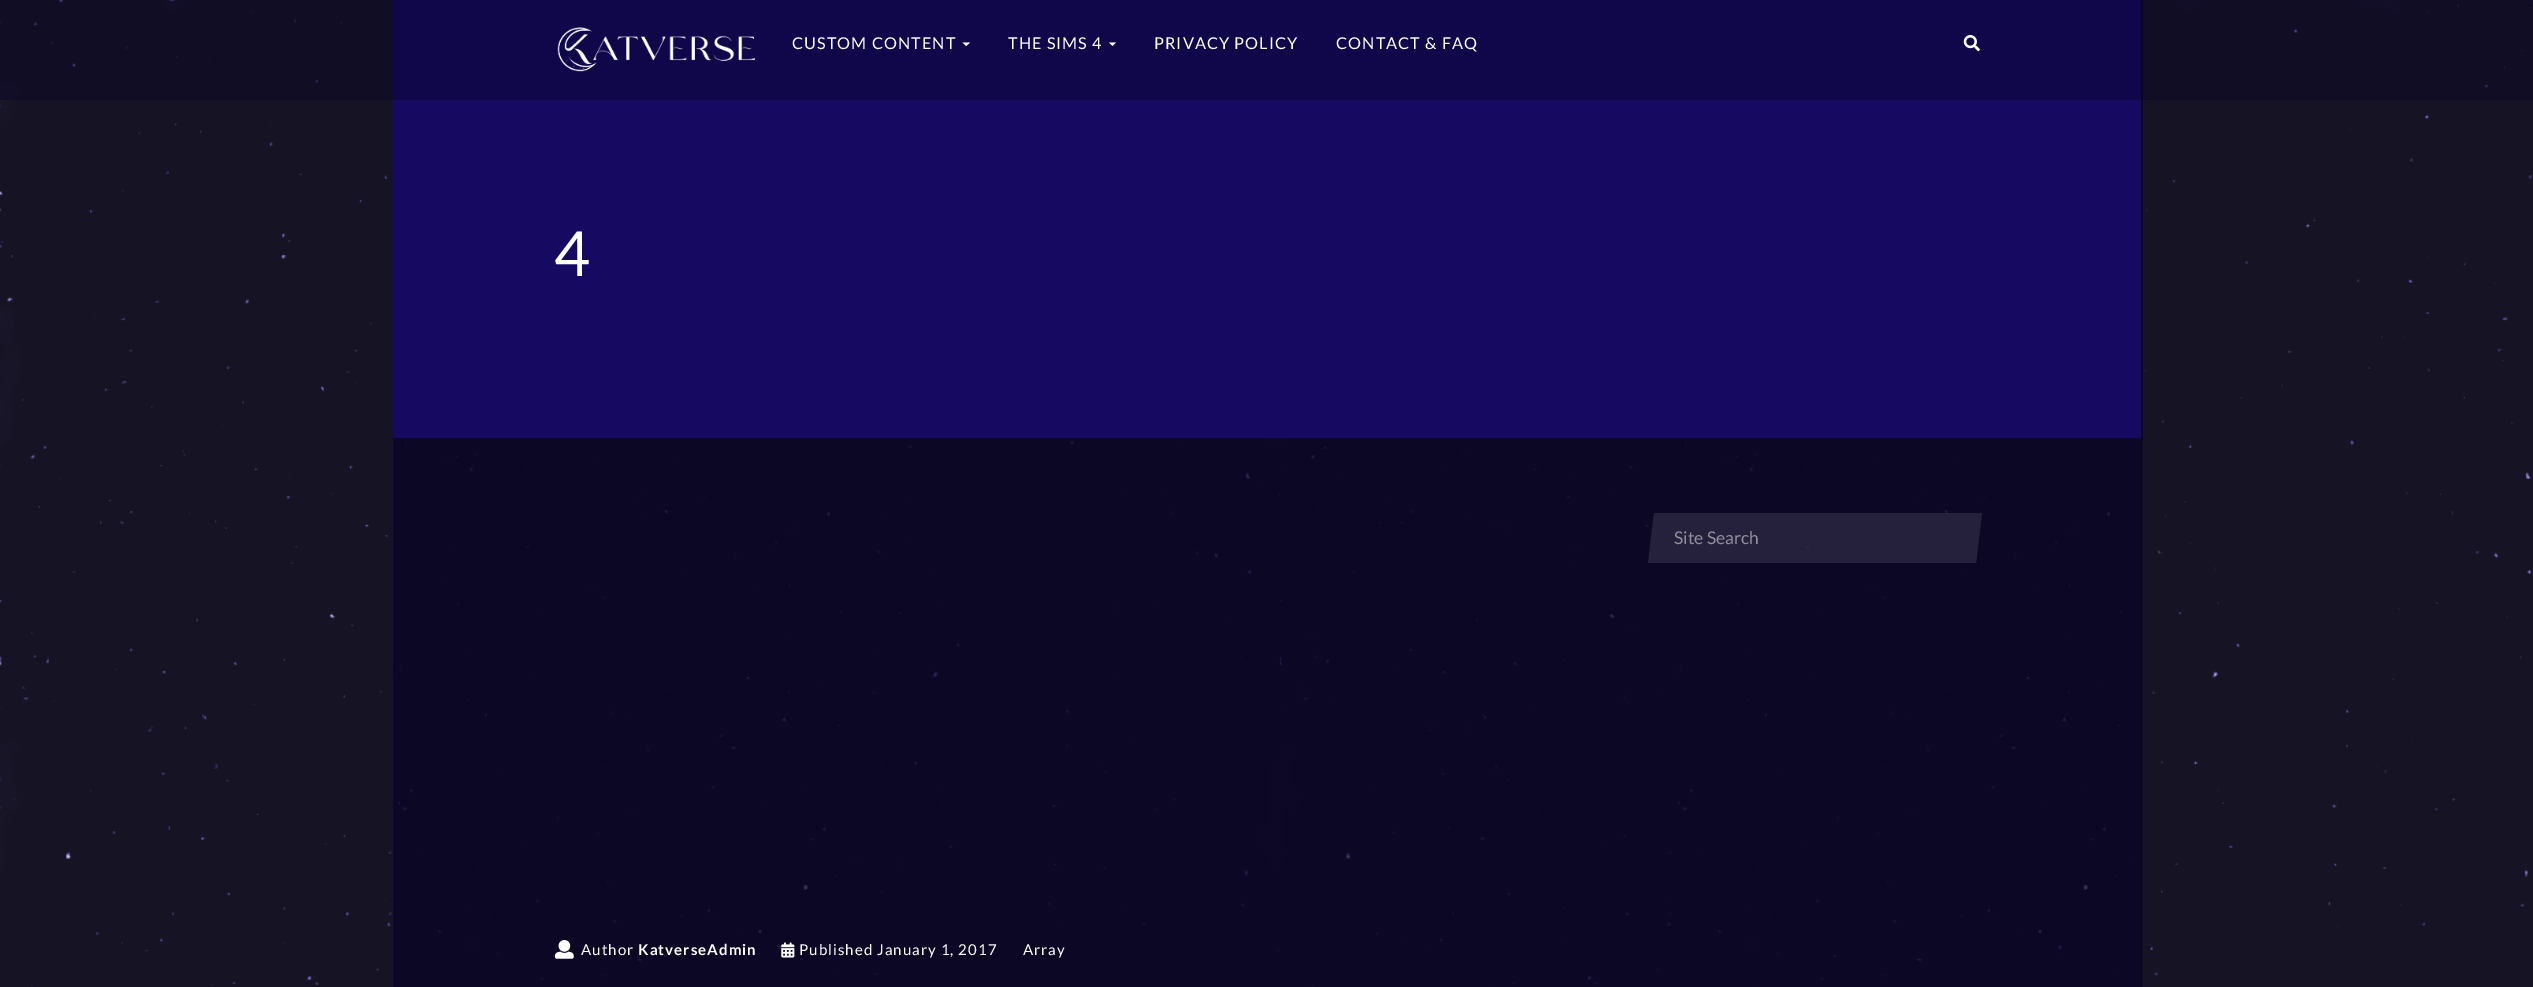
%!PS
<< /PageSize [2533 987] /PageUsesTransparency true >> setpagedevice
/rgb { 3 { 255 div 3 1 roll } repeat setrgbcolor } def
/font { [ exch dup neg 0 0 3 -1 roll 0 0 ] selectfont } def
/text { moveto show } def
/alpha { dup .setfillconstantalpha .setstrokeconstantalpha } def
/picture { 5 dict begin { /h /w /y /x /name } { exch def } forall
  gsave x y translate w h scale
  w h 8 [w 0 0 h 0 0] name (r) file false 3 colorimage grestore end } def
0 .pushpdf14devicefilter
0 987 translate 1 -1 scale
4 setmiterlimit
255 255 255 rgb
0 0 2533 987 rectfill
(img_01.rgb) 0 0 2533 987 picture
0.75 alpha
8 3 37 rgb
393 0 1750 987 rectfill
1 alpha
22 9 98 rgb
393 0 1748 438 rectfill
0.4 alpha
8 3 37 rgb
0 0 2533 100 rectfill
1 alpha
(img_02.rgb) 557 27 198 45 picture
255 255 255 rgb
962.5 42.5 moveto 7.5 0 rlineto -4 3.5 rlineto closepath fill
1109 42.5 moveto 7 0 rlineto -3.5 3.5 rlineto closepath fill
(img_03.rgb) 1963 35 17 17 picture
0.1 alpha
1654 513 moveto 328 0 rlineto -6 50 rlineto -328 0 rlineto closepath fill
1 alpha
(img_04.rgb) 555 940 19 19 picture
(img_05.rgb) 781 942 14 16 picture
/Lato-Regular 16.25 font
792 49 moveto 1.05 0 (CUSTOM CONTENT) ashow
1008 49 moveto 1.05 0 (THE SIMS 4) ashow
1154 49 moveto 1.05 0 (PRIVACY POLICY) ashow
1336 49 moveto 1.05 0 (CONTACT & FAQ) ashow
/Lato-Regular 62 font
554 276 moveto 1.05 0 (4) ashow
/Lato-Regular 17.5 font
145 143 157 rgb
(Site Search) 1674 544 text
/Lato-Regular 15 font
255 255 255 rgb
581 955 moveto 1.05 0 (Author) ashow
/Lato-Bold 15 font
638 955 moveto 1.05 0 (KatverseAdmin) ashow
/Lato-Regular 15 font
799 955 moveto 1.05 0 (Published January 1, 2017) ashow
1023 955 moveto 1.05 0 (Array) ashow
.poppdf14devicefilter showpage
